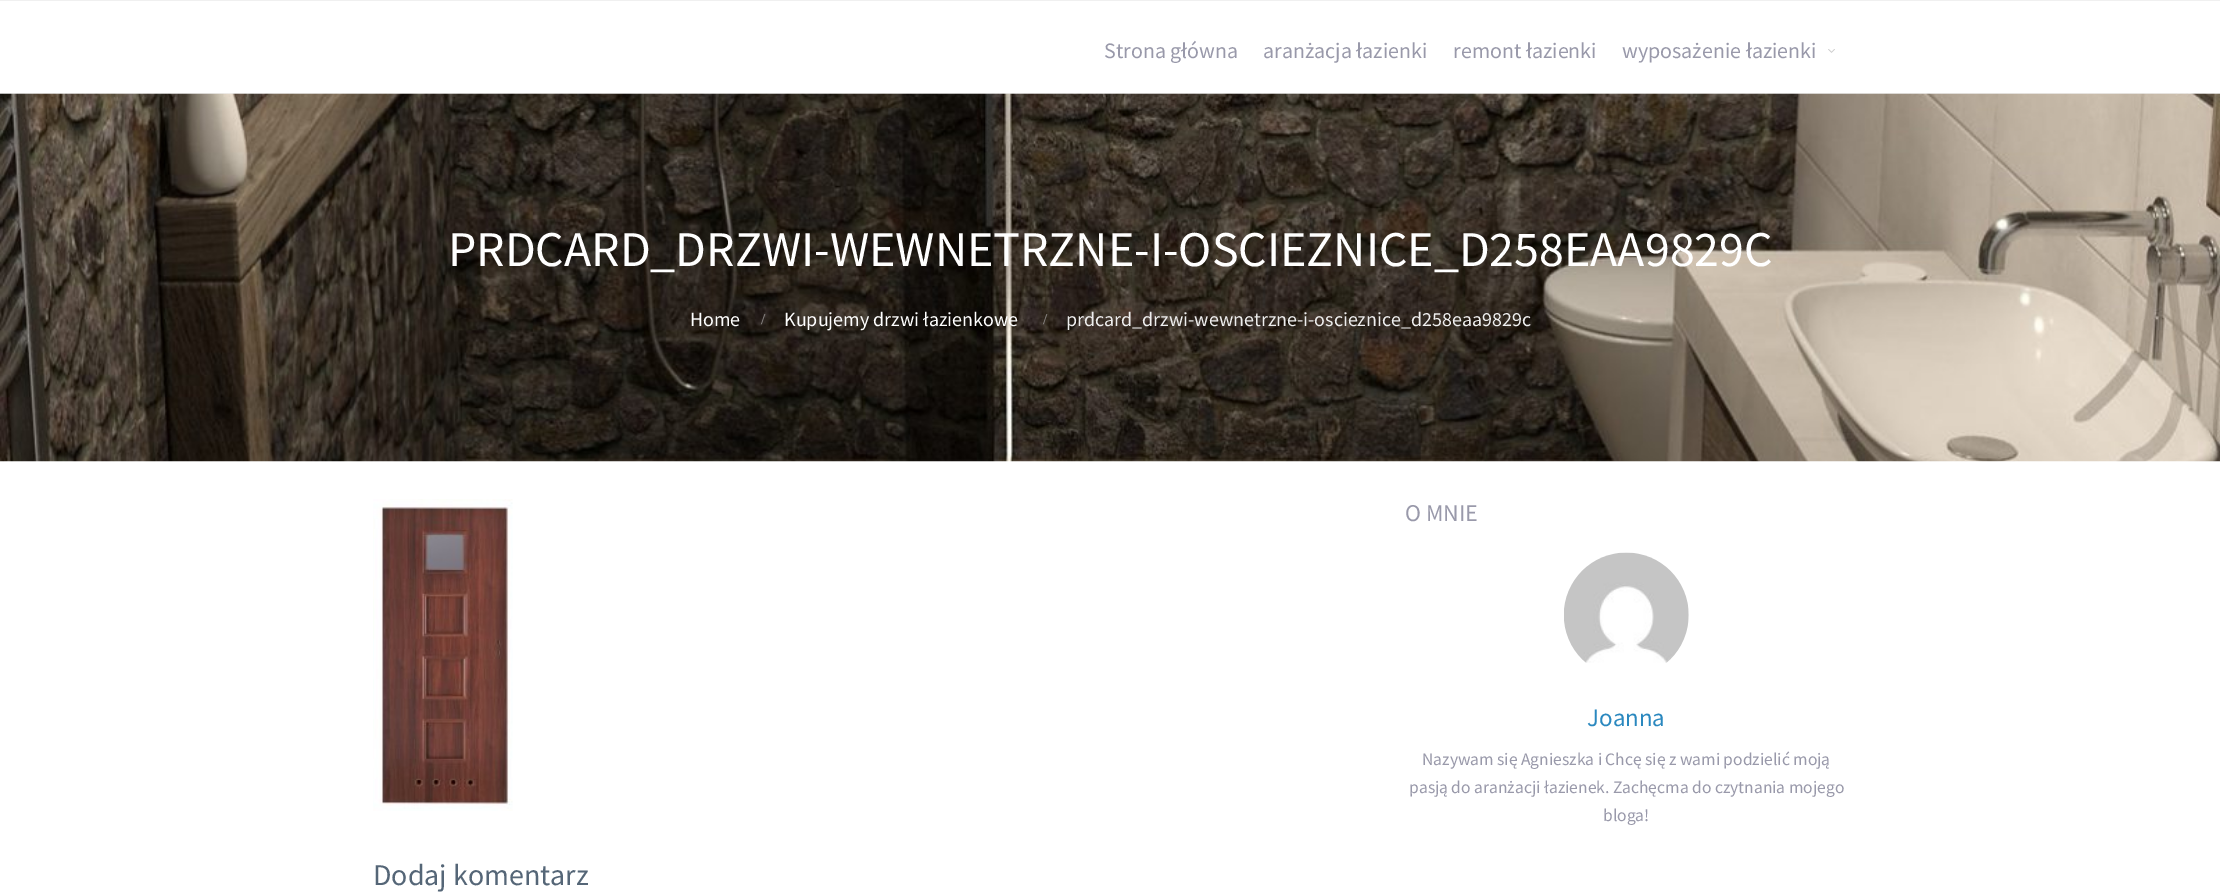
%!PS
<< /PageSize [2220 892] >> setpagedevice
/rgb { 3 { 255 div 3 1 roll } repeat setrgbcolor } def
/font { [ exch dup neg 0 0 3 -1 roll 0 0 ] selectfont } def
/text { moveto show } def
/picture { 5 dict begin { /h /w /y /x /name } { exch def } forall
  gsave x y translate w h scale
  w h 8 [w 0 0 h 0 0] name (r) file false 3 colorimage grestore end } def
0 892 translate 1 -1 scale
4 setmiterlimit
240 240 240 rgb
0 0 2220 892 rectfill
255 255 255 rgb
0 1 2220 92 rectfill
(img_01.rgb) 1828 49 7 4 picture
0 461 2220 431 rectfill
(img_02.rgb) 0 93 2220 369 picture
(img_03.rgb) 1564 552 125 111 picture
(img_04.rgb) 373 499 140 312 picture
/SourceSansPro-Regular 22 font
153 153 170 rgb
(Strona główna) 1104 58 text
(aranżacja łazienki) 1263 58 text
(remont łazienki) 1453 58 text
(wyposażenie łazienki) 1622 58 text
/SourceSansPro-Regular 50 font
255 255 255 rgb
(PRDCARD_DRZWI-WEWNETRZNE-I-OSCIEZNICE_D258EAA9829C) 448 266 text
/SourceSansPro-Regular 20 font
(Home) 690 326 text
/LiberationSerif-Bold 15 font
133 129 127 rgb
(/) 761 324 text
/SourceSansPro-Regular 20 font
255 255 255 rgb
(Kupujemy drzwi łazienkowe) 784 326 text
/LiberationSerif-Bold 15 font
133 129 127 rgb
(/) 1043 324 text
/SourceSansPro-Regular 20 font
238 238 238 rgb
(prdcard_drzwi-wewnetrzne-i-oscieznice_d258eaa9829c) 1066 326 text
/SourceSansPro-Regular 24 font
153 153 170 rgb
(O MNIE) 1405 521 text
/SourceSansPro-Regular 25 font
42 136 191 rgb
(Joanna) 1587 726 text
/SourceSansPro-Regular 17.5 font
153 153 170 rgb
(Nazywam się Agnieszka i Chcę się z wami podzielić moją) 1422 765 text
(pasją do aranżacji łazienek. Zachęcma do czytnania mojego) 1409 793 text
(bloga!) 1603 821 text
/SourceSansPro-Regular 30 font
85 102 119 rgb
(Dodaj komentarz) 373 885 text
showpage
